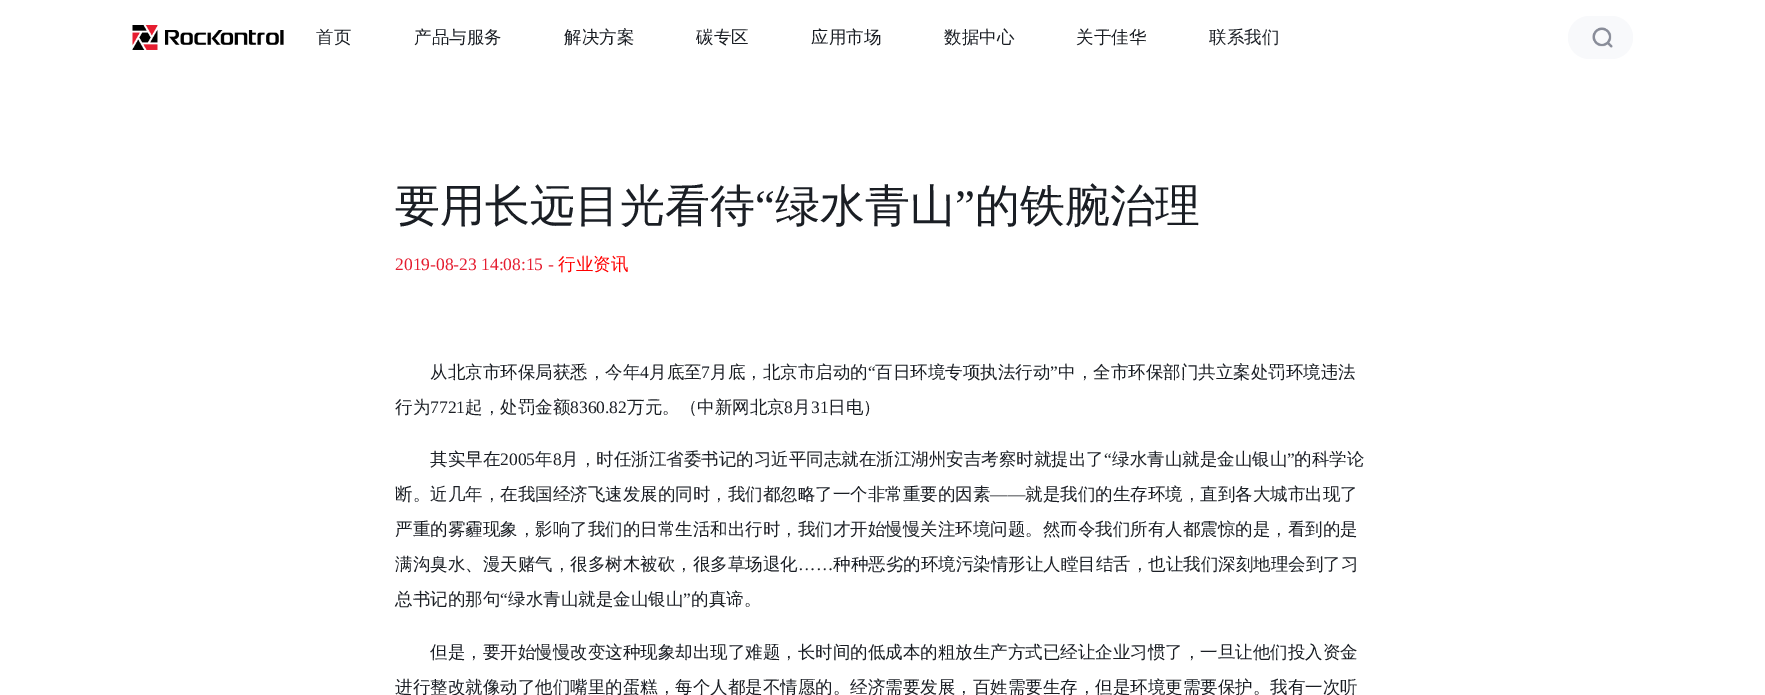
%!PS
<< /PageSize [1765 695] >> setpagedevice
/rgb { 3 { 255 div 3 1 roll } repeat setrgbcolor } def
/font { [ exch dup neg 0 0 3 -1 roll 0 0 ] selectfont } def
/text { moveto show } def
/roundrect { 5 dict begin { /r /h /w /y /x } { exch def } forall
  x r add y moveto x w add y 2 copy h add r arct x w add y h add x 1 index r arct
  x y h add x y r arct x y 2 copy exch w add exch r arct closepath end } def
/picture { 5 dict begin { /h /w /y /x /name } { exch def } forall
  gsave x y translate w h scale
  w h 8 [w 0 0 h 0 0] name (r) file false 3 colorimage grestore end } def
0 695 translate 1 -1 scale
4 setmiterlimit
255 255 255 rgb
0 0 1765 695 rectfill
(img_01.rgb) 132 25 152 25 picture
248 249 251 rgb
1568 16 65 43 21.5 roundrect fill
(img_02.rgb) 1592 27 21 21 picture
/WenQuanYiZenHei-Medium 17.5 font
26 30 36 rgb
(首页) 316 43 text
(产品与服务) 414 43 text
(解决方案) 564 43 text
(碳专区) 696 43 text
(应用市场) 811 43 text
(数据中心) 944 43 text
(关于佳华) 1076 43 text
(联系我们) 1209 43 text
/WenQuanYiZenHei-Medium 45 font
(要用长远目光看待) 395 221 text
/LiberationSerif-Regular 45 font
(“) 755 221 text
/WenQuanYiZenHei-Medium 45 font
(绿水青山) 775 221 text
/LiberationSerif-Regular 45 font
(”) 955 221 text
/WenQuanYiZenHei-Medium 45 font
(的铁腕治理) 975 221 text
/LiberationSerif-Regular 17.5 font
229 29 48 rgb
(2019-08-23 14:08:15 -) 395 270 text
/WenQuanYiZenHei-Medium 17.5 font
255 0 0 rgb
(行业资讯) 558 270 text
26 30 36 rgb
(从北京市环保局获悉，今年) 430 378 text
/LiberationSerif-Regular 17.5 font
(4) 640 378 text
/WenQuanYiZenHei-Medium 17.5 font
(月底至) 649 378 text
/LiberationSerif-Regular 17.5 font
(7) 701 378 text
/WenQuanYiZenHei-Medium 17.5 font
(月底，北京市启动的) 710 378 text
/LiberationSerif-Regular 17.5 font
(“) 868 378 text
/WenQuanYiZenHei-Medium 17.5 font
(百日环境专项执法行动) 875 378 text
/LiberationSerif-Regular 17.5 font
(”) 1050 378 text
/WenQuanYiZenHei-Medium 17.5 font
(中，全市环保部门共立案处罚环境违法) 1058 378 text
(行为) 395 413 text
/LiberationSerif-Regular 17.5 font
(7721) 430 413 text
/WenQuanYiZenHei-Medium 17.5 font
(起，处罚金额) 465 413 text
/LiberationSerif-Regular 17.5 font
(8360.82) 570 413 text
/WenQuanYiZenHei-Medium 17.5 font
(万元。（中新网北京) 627 413 text
/LiberationSerif-Regular 17.5 font
(8) 784 413 text
/WenQuanYiZenHei-Medium 17.5 font
(月) 793 413 text
/LiberationSerif-Regular 17.5 font
(31) 811 413 text
/WenQuanYiZenHei-Medium 17.5 font
(日电）) 828 413 text
(其实早在) 430 465 text
/LiberationSerif-Regular 17.5 font
(2005) 500 465 text
/WenQuanYiZenHei-Medium 17.5 font
(年) 535 465 text
/LiberationSerif-Regular 17.5 font
(8) 553 465 text
/WenQuanYiZenHei-Medium 17.5 font
(月，时任浙江省委书记的习近平同志就在浙江湖州安吉考察时就提出了) 561 465 text
/LiberationSerif-Regular 17.5 font
(“) 1104 465 text
/WenQuanYiZenHei-Medium 17.5 font
(绿水青山就是金山银山) 1112 465 text
/LiberationSerif-Regular 17.5 font
(”) 1287 465 text
/WenQuanYiZenHei-Medium 17.5 font
(的科学论) 1294 465 text
(断。近几年，在我国经济飞速发展的同时，我们都忽略了一个非常重要的因素) 395 500 text
/LiberationSerif-Regular 17.5 font
(——) 990 500 text
/WenQuanYiZenHei-Medium 17.5 font
(就是我们的生存环境，直到各大城市出现了) 1025 500 text
(严重的雾霾现象，影响了我们的日常生活和出行时，我们才开始慢慢关注环境问题。然而令我们所有人都震惊的是，看到的是) 395 535 text
(满沟臭水、漫天赌气，很多树木被砍，很多草场退化) 395 570 text
/LiberationSerif-Regular 17.5 font
(……) 798 570 text
/WenQuanYiZenHei-Medium 17.5 font
(种种恶劣的环境污染情形让人瞠目结舌，也让我们深刻地理会到了习) 833 570 text
(总书记的那句) 395 605 text
/LiberationSerif-Regular 17.5 font
(“) 500 605 text
/WenQuanYiZenHei-Medium 17.5 font
(绿水青山就是金山银山) 508 605 text
/LiberationSerif-Regular 17.5 font
(”) 683 605 text
/WenQuanYiZenHei-Medium 17.5 font
(的真谛。) 691 605 text
(但是，要开始慢慢改变这种现象却出现了难题，长时间的低成本的粗放生产方式已经让企业习惯了，一旦让他们投入资金) 430 658 text
(进行整改就像动了他们嘴里的蛋糕，每个人都是不情愿的。经济需要发展，百姓需要生存，但是环境更需要保护。我有一次听) 395 693 text
showpage
